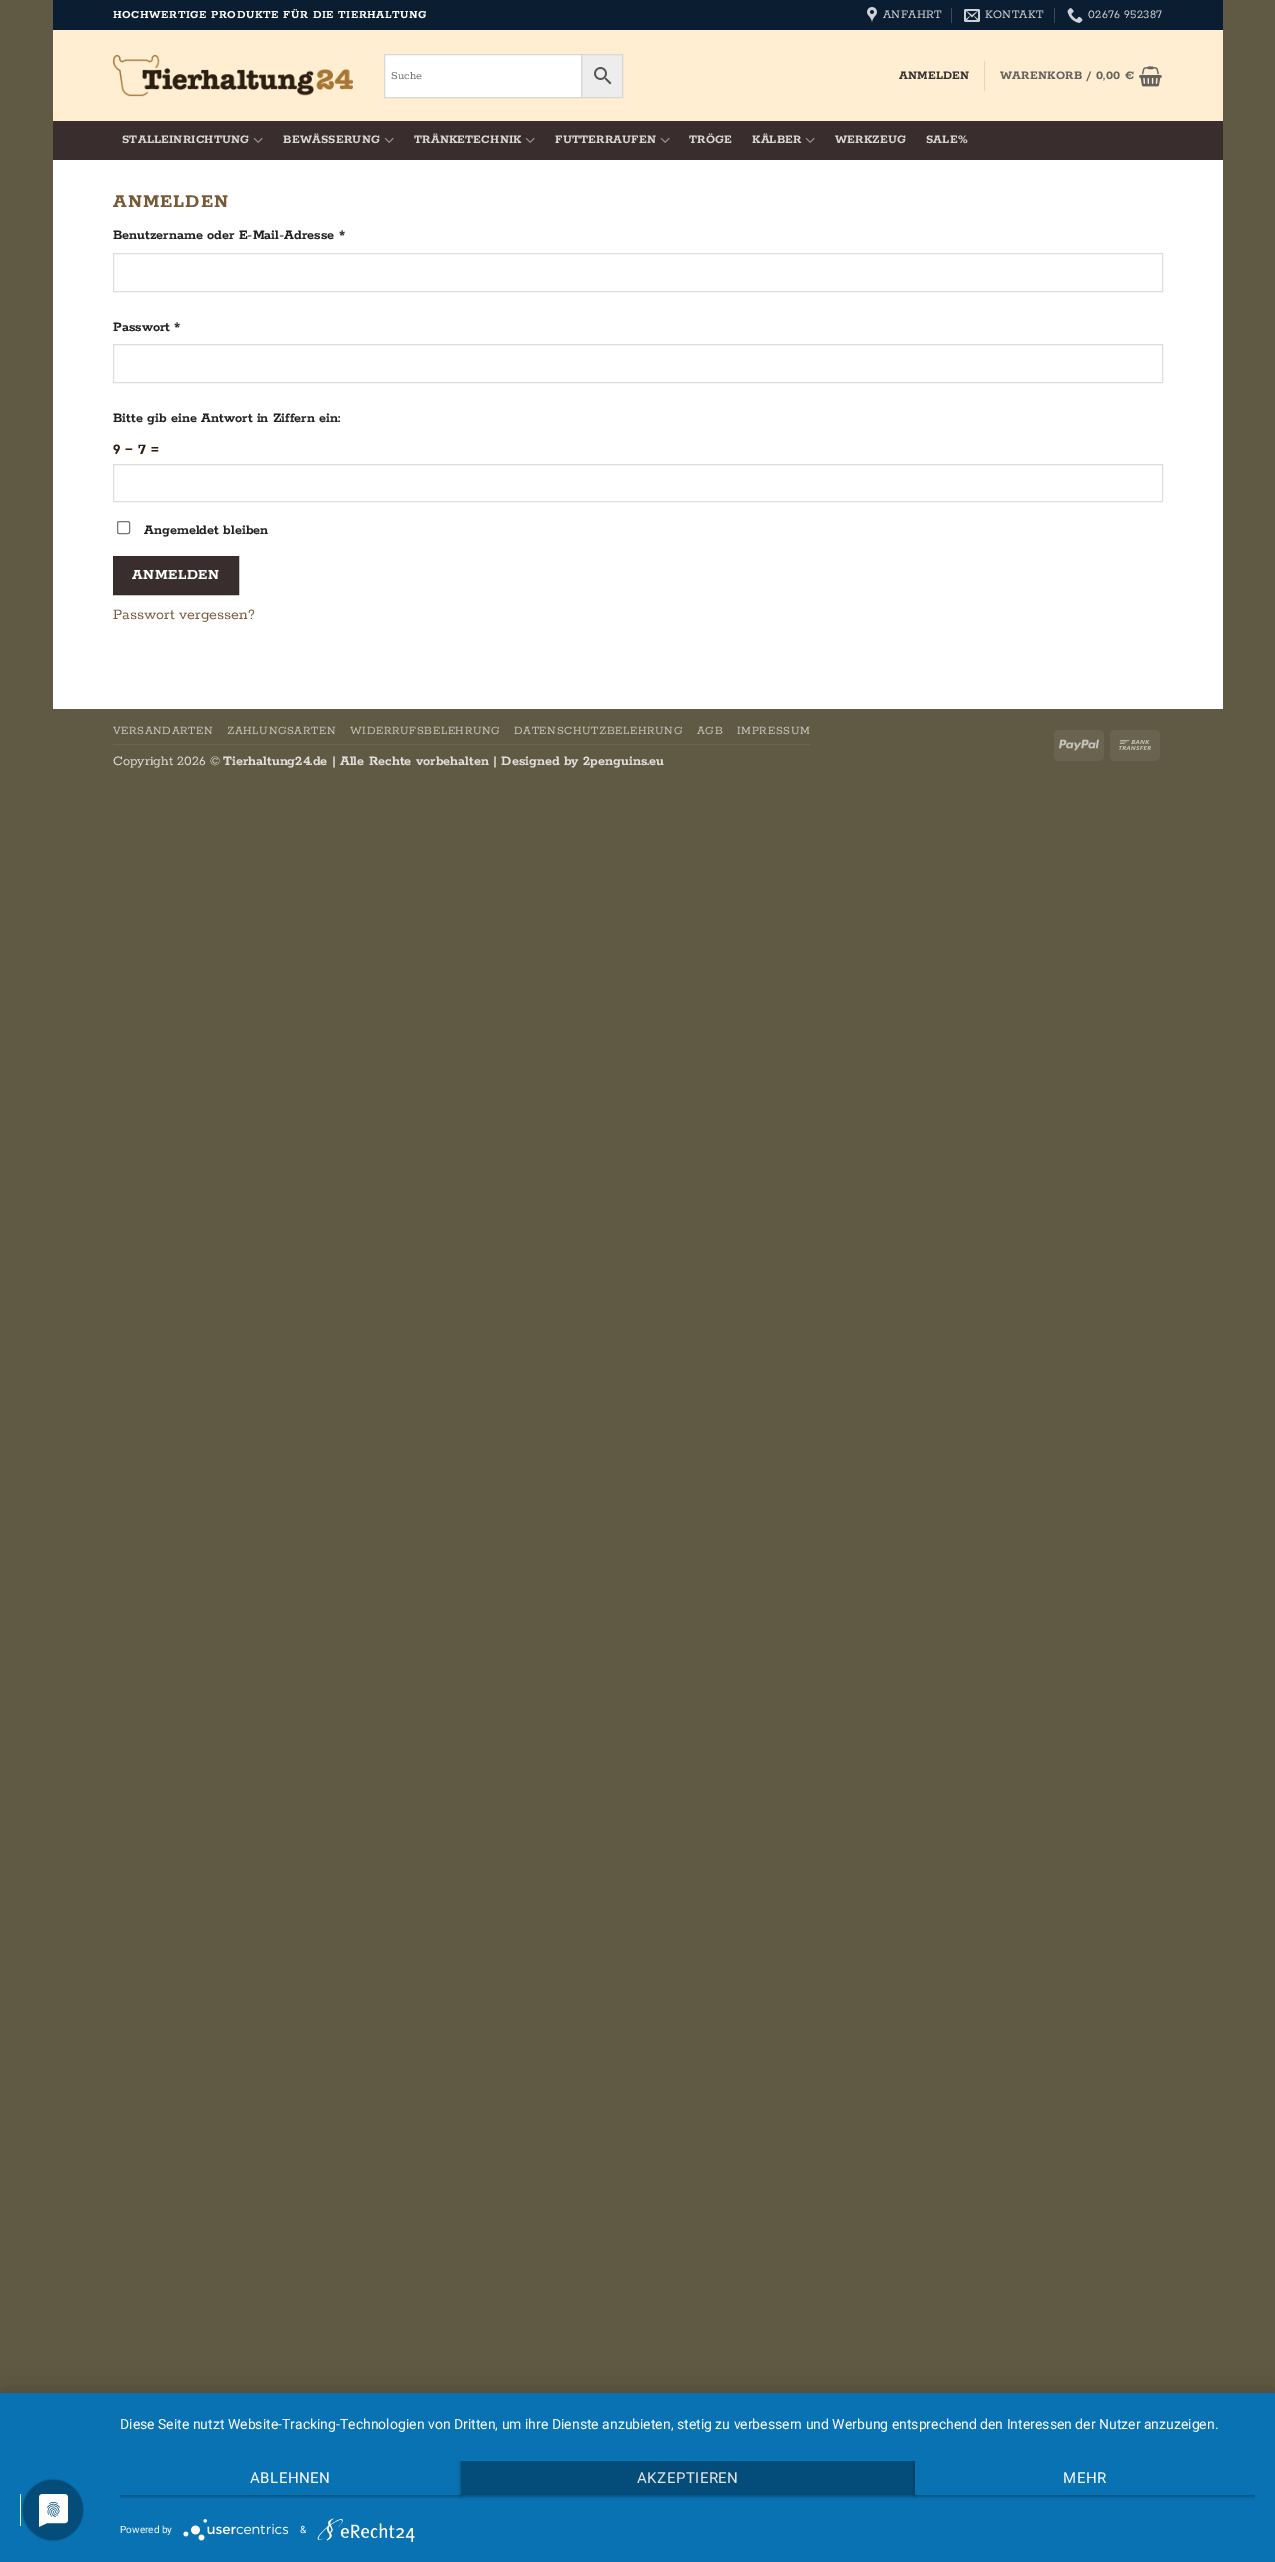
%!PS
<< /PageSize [1275 2562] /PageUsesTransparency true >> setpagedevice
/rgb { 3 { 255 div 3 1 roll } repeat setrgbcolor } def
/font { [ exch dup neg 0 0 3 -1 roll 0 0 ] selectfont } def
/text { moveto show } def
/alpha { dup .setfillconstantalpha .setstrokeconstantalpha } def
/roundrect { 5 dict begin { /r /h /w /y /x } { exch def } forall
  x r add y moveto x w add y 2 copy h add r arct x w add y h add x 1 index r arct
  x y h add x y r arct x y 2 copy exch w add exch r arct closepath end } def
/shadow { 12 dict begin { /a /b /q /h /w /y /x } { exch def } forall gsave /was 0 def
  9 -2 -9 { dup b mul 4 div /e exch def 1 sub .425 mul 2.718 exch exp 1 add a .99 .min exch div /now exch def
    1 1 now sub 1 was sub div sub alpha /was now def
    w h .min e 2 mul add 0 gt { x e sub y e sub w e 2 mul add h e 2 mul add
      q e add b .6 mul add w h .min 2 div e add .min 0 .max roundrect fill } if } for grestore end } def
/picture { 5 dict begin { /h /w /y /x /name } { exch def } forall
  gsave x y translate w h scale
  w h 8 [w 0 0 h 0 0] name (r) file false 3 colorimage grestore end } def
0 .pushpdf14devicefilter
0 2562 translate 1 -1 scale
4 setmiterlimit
96 89 68 rgb
0 0 1275 2562 rectfill
255 255 255 rgb
53 160 1170 549 rectfill
11 30 49 rgb
53 0 1170 30 rectfill
(img_01.rgb) 867 7 10 16 picture
60 75 90 rgb
951 8 1 15 rectfill
(img_02.rgb) 964 9 16 13 picture
1054 8 1 15 rectfill
(img_03.rgb) 1067 8 16 15 picture
255 238 209 rgb
53 30 1170 91 rectfill
(img_04.rgb) 113 55 240 42 picture
237 237 237 rgb
581.5 54.5 moveto 41 0 rlineto 0 43 rlineto -41 0 rlineto closepath gsave fill grestore
216 216 216 rgb
stroke
255 255 255 rgb
384.5 54.5 moveto 197 0 rlineto 0 43 rlineto -197 0 rlineto closepath gsave fill grestore
216 216 216 rgb
stroke
(img_05.rgb) 594 67 18 18 picture
230 214 188 rgb
984 61 1 30 rectfill
(img_06.rgb) 1139 66 23 21 picture
57 45 45 rgb
53 121 1170 39 rectfill
(img_07.rgb) 253 137 10 6 picture
(img_07.rgb) 384 137 10 6 picture
(img_07.rgb) 525 137 10 6 picture
(img_07.rgb) 660 137 10 6 picture
(img_07.rgb) 805 137 10 6 picture
221 221 221 rgb
113.5 253.5 1049 38 rectstroke
113.5 344.5 1049 38 rectstroke
113.5 464.5 1049 37 rectstroke
118 118 118 rgb
117.5 521.5 12 12 1.5 roundrect stroke
57 45 45 rgb
113.5 556.5 moveto 125 0 rlineto 0 38 rlineto -125 0 rlineto closepath gsave fill grestore
54 43 43 rgb
stroke
106 100 80 rgb
113 744 697 1 rectfill
105 99 79 rgb
1054 730 50 31 5 roundrect fill
(img_08.rgb) 1059 739 40 12 picture
1110 730 50 31 5 roundrect fill
(img_09.rgb) 1119 740 32 10 picture
0 0 0 rgb
0 2399 1275 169 0 18 0.3 shadow
9 114 179 rgb
0 2393 1275 169 rectfill
236 236 236 rgb
20 2494 1 32 rectfill
(img_10.rgb) 21 2478 63 64 picture
gsave
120 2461 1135 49 rectclip
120 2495 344 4 rectclip
0 0 0 rgb
120 2462 341 34 0 2 0.4 shadow
grestore
gsave
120 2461 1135 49 rectclip
0 0 0 rgb
461 2462 454 34 0 2 0.4 shadow
grestore
4 77 122 rgb
461 2461 454 34 rectfill
gsave
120 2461 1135 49 rectclip
0 0 0 rgb
915 2462 340 34 0 2 0.4 shadow
grestore
9 114 179 rgb
915 2461 340 34 rectfill
(img_11.rgb) 183 2519 106 22 picture
(img_12.rgb) 317 2518 98 24 picture
/Rokkitt-Bold 12 font
255 255 255 rgb
113 18 moveto 0.6 0 (HOCHWERTIGE PRODUKTE FÜR DIE TIERHALTUNG) ashow
/Rokkitt-Regular 12.75 font
206 210 214 rgb
883 18 moveto 0.25 0 (ANFAHRT) ashow
985 18 moveto 0.25 0 (KONTAKT) ashow
1088 18 moveto 0.25 0 (02676 952387) ashow
/Rokkitt-Regular 12 font
117 117 117 rgb
(Suche) 391 79 text
/Rokkitt-Bold 12.75 font
54 51 47 rgb
899 79 moveto 0.25 0 (ANMELDEN) ashow
101 99 94 rgb
1000 79 moveto 0.25 0 (WARENKORB / 0,00 €) ashow
215 213 213 rgb
122 143 moveto 0.25 0 (STALLEINRICHTUNG) ashow
283 143 moveto 0.25 0 (BEWÄSSERUNG) ashow
414 143 moveto 0.25 0 (TRÄNKETECHNIK) ashow
555 143 moveto 0.25 0 (FUTTERRAUFEN) ashow
689 143 moveto 0.25 0 (TRÖGE) ashow
752 143 moveto 0.25 0 (KÄLBER) ashow
835 143 moveto 0.25 0 (WERKZEUG) ashow
926 143 moveto 0.25 0 (SALE%) ashow
/Rokkitt-Bold 20 font
120 90 58 rgb
113 207 moveto 1 0 (ANMELDEN) ashow
/Rokkitt-Bold 14.4 font
34 34 34 rgb
(Benutzername oder E-Mail-Adresse *) 113 239 text
(Passwort *) 113 331 text
(Bitte gib eine Antwort in Ziffern ein:) 113 422 text
/Rokkitt-Bold 16 font
44 31 17 rgb
(9 − 7 =) 113 454 text
/Rokkitt-Bold 14.4 font
34 34 34 rgb
(Angemeldet bleiben) 144 534 text
/Rokkitt-Bold 15.5 font
255 255 255 rgb
132 579 moveto 0.5 0 (ANMELDEN) ashow
/Rokkitt-Regular 16 font
120 90 58 rgb
(Passwort vergessen?) 113 619 text
/Rokkitt-Regular 12.25 font
198 195 188 rgb
113 734 moveto 0.6 0 (VERSANDARTEN) ashow
227 734 moveto 0.6 0 (ZAHLUNGSARTEN) ashow
350 734 moveto 0.6 0 (WIDERRUFSBELEHRUNG) ashow
514 734 moveto 0.6 0 (DATENSCHUTZBELEHRUNG) ashow
697 734 moveto 0.6 0 (AGB) ashow
737 734 moveto 0.6 0 (IMPRESSUM) ashow
/Rokkitt-Regular 14.4 font
223 222 218 rgb
(Copyright 2026 ©) 113 765 text
/Rokkitt-Bold 14.4 font
(Tierhaltung24.de | Alle Rechte vorbehalten | Designed by 2penguins.eu) 223 765 text
/Roboto-Regular 14 font
255 255 255 rgb
(Diese Seite nutzt Website-Tracking-Technologien von Dritten, um ihre Dienste anzubieten, stetig zu verbessern und Werbung entsprechend den Interessen der Nutzer anzuzeigen.) 120 2429 text
/Roboto-Regular 15 font
250 2483 moveto 0.5 0 (ABLEHNEN) ashow
230 230 230 rgb
637 2483 moveto 0.5 0 (AKZEPTIEREN) ashow
255 255 255 rgb
1063 2483 moveto 0.5 0 (MEHR) ashow
/Roboto-Regular 10 font
(Powered by) 120 2533 text
(&) 300 2533 text
.poppdf14devicefilter showpage
